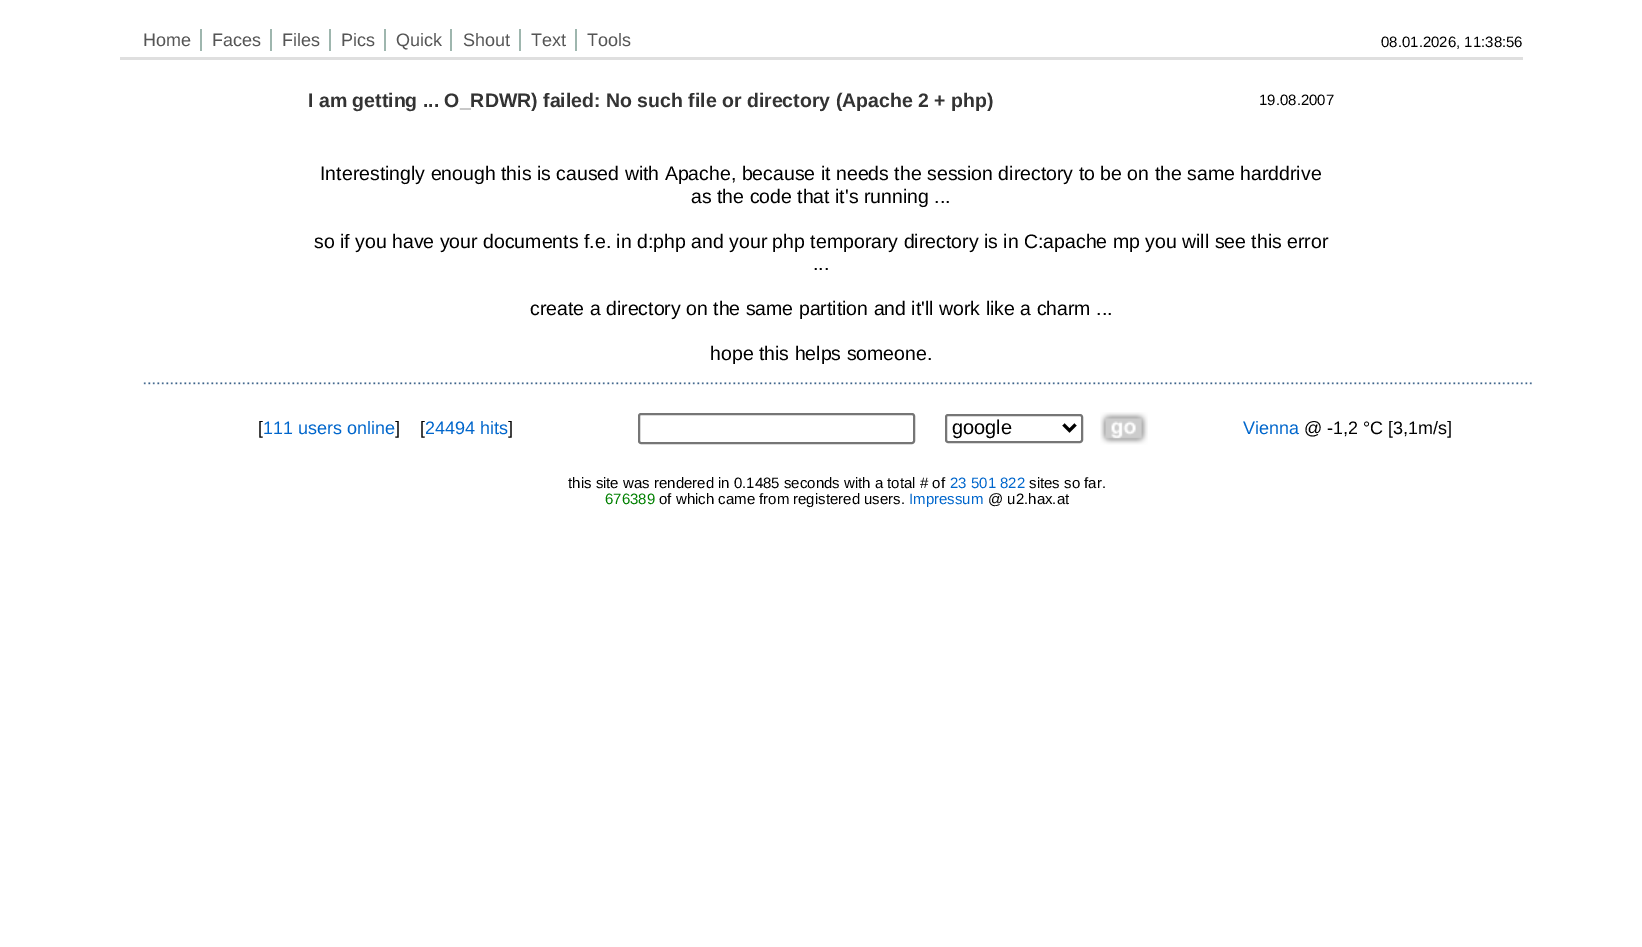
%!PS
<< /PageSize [1642 947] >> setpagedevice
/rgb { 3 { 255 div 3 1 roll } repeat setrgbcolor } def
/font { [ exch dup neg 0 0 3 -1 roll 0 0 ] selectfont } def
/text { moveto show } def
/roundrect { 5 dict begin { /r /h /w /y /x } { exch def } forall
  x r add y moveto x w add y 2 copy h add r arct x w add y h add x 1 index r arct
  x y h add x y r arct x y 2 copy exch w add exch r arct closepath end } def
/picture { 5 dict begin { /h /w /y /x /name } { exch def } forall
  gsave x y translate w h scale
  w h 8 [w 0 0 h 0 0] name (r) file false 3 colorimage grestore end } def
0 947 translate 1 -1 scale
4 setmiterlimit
255 255 255 rgb
0 0 1642 947 rectfill
158 182 174 rgb
200 29 2 22 rectfill
270 29 2 22 rectfill
329 29 2 22 rectfill
384 29 2 22 rectfill
450 29 2 22 rectfill
519 29 2 22 rectfill
575 29 2 22 rectfill
223 223 223 rgb
120 57 1403 3 rectfill
(img_01.rgb) 143 382 1389 3 picture
118 118 118 rgb
2 setlinewidth
639 414 275 29 2 roundrect stroke
946 415 136 27 2 roundrect stroke
0 0 0 rgb
3 setlinewidth
1063.5 424.5 moveto 6 6 rlineto 6 -6 rlineto stroke
(img_02.rgb) 1100 412 48 33 picture
/LiberationSans-Regular 18 font
85 85 85 rgb
(Home) 143 46 text
(Faces) 212 46 text
(Files) 282 46 text
(Pics) 341 46 text
(Quick) 396 46 text
(Shout) 463 46 text
(Text) 531 46 text
(Tools) 587 46 text
/LiberationSans-Regular 15 font
0 0 0 rgb
(08.01.2026, 11:38:56) 1381 47 text
/LiberationSans-Bold 19.5 font
51 51 51 rgb
(I am getting ... O_RDWR\) failed: No such file or directory \(Apache 2 + php\)) 308 107 text
/LiberationSans-Regular 15 font
0 0 0 rgb
(19.08.2007) 1259 105 text
/LiberationSans-Regular 19.5 font
(Interestingly enough this is caused with Apache, because it needs the session directory to be on the same harddrive) 320 180 text
(as the code that it's running ...) 691 203 text
(so if you have your documents f.e. in d:php and your php temporary directory is in C:apache mp you will see this error) 314 248 text
(...) 813 270 text
(create a directory on the same partition and it'll work like a charm ...) 530 315 text
(hope this helps someone.) 710 360 text
/LiberationSans-Regular 18 font
([) 258 434 text
0 102 204 rgb
(111 users online) 263 434 text
0 0 0 rgb
(]    [) 395 434 text
0 102 204 rgb
(24494 hits) 425 434 text
0 0 0 rgb
(]) 508 434 text
/LiberationSans-Regular 20 font
(google) 952 434 text
/LiberationSans-Regular 18 font
0 102 204 rgb
(Vienna) 1243 434 text
0 0 0 rgb
(@ -1,2 °C [3,1m/s]) 1304 434 text
/LiberationSans-Regular 15 font
(this site was rendered in 0.1485 seconds with a total # of) 568 488 text
0 102 204 rgb
(23 501 822) 950 488 text
0 0 0 rgb
(sites so far.) 1029 488 text
0 128 0 rgb
(676389) 605 504 text
0 0 0 rgb
(of which came from registered users.) 659 504 text
0 102 204 rgb
(Impressum) 909 504 text
0 0 0 rgb
(@ u2.hax.at) 988 504 text
showpage
